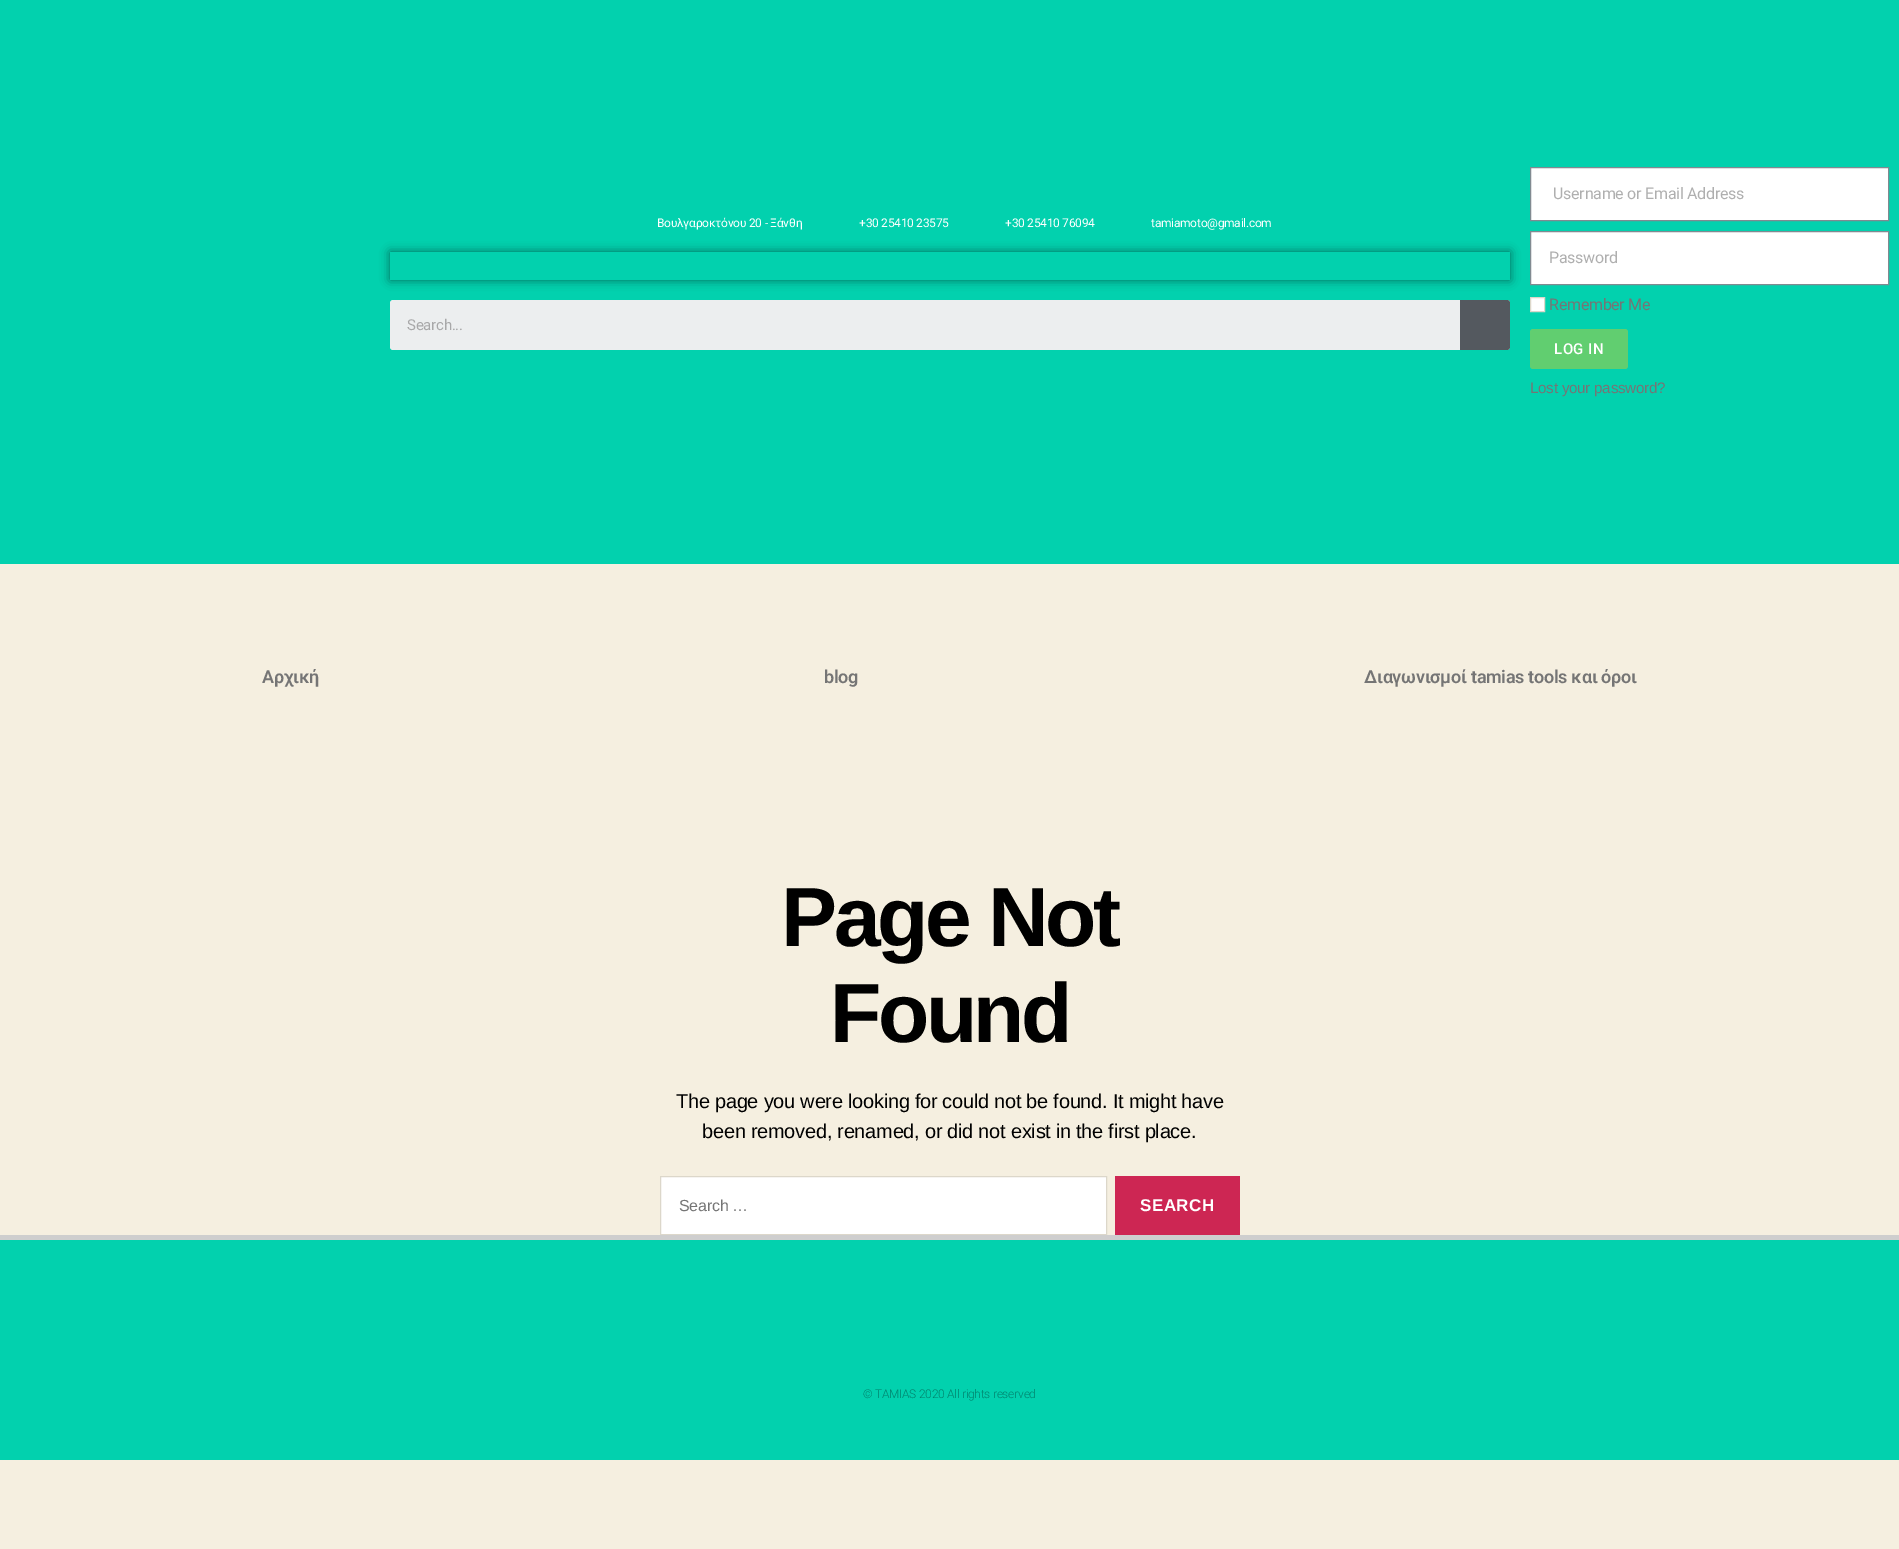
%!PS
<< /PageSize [1899 1549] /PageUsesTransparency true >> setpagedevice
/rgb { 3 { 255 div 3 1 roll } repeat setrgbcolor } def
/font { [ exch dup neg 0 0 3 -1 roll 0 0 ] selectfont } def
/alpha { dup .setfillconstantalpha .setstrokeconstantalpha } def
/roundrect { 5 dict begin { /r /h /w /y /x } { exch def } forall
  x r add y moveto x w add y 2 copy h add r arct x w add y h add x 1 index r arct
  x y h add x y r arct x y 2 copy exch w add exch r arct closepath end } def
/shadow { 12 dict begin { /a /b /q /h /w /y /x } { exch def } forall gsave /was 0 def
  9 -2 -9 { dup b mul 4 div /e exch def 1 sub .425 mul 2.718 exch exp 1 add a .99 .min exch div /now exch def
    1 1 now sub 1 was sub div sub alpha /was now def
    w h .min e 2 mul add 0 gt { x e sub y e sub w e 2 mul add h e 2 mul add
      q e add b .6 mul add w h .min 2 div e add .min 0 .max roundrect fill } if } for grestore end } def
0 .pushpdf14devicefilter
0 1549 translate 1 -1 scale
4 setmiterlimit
245 239 224 rgb
0 0 1899 1549 rectfill
2 209 174 rgb
0 0 1899 564 rectfill
gsave
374 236 moveto 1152 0 rlineto 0 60 rlineto -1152 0 rlineto closepath 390 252 moveto 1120 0 rlineto 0 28 rlineto -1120 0 rlineto closepath eoclip newpath
0 0 0 rgb
390 252 1120 28 0 5 0.5 shadow
grestore
236 238 239 rgb
390 300 1120 50 3 roundrect fill
84 89 95 rgb
1460 300 moveto 47 0 rlineto 1.5 0 3 1.5 3 3 rcurveto 0 44 rlineto 0 1.5 -1.5 3 -3 3 rcurveto -47 0 rlineto closepath fill
255 255 255 rgb
1530.5 167.5 moveto 358 0 rlineto 0 53 rlineto -358 0 rlineto closepath gsave fill grestore
129 138 145 rgb
stroke
255 255 255 rgb
1530.5 231.5 moveto 358 0 rlineto 0 53 rlineto -358 0 rlineto closepath gsave fill grestore
129 138 145 rgb
stroke
255 255 255 rgb
1530.5 297.5 moveto 14 0 rlineto 0 14 rlineto -14 0 rlineto closepath gsave fill grestore
220 215 202 rgb
stroke
97 206 112 rgb
1530 329 98 40 3 roundrect fill
255 255 255 rgb
660.5 1176.5 moveto 446 0 rlineto 0 58 rlineto -446 0 rlineto closepath gsave fill grestore
220 215 202 rgb
stroke
205 38 83 rgb
1115 1176 125 59 rectfill
2 209 174 rgb
0 1240 1899 220 rectfill
206 206 206 rgb
0 1235 1899 5 rectfill
/Roboto-Regular 12 font
255 255 255 rgb
657 227 moveto -0.27 0 (Βουλγαροκτόνου 20 - Ξάνθη) ashow
859 227 moveto -0.27 0 (+30 25410 23575) ashow
1005 227 moveto -0.27 0 (+30 25410 76094) ashow
1151 227 moveto -0.27 0 (tamiamoto@gmail.com) ashow
/Roboto-Regular 15 font
168 168 169 rgb
407 330 moveto -0.25 0 (Search...) ashow
/Roboto-Regular 16 font
175 175 175 rgb
1553 199 moveto -0.25 0 (Username or Email Address) ashow
1549 263 moveto -0.25 0 (Password) ashow
117 117 117 rgb
1549 310 moveto -0.27 0 (Remember Me) ashow
/Roboto-Medium 15 font
255 255 255 rgb
1554 354 moveto 0.5 0 (LOG IN) ashow
/LiberationSans-Regular 15.25 font
117 117 117 rgb
1530 393 moveto -0.27 0 (Lost your password?) ashow
/Roboto-SemiBold 18 font
262 683 moveto -0.27 0 (Αρχική) ashow
824 683 moveto -0.27 0 (blog) ashow
1364 683 moveto -0.27 0 (Διαγωνισμοί tamias tools και όροι) ashow
/LiberationSans-Bold 84 font
0 0 0 rgb
781 946 moveto -3.5 0 (Page Not) ashow
830 1042 moveto -3.5 0 (Found) ashow
/LiberationSans-Regular 20 font
676 1108 moveto -0.27 0 (The page you were looking for could not be found. It might have) ashow
702 1138 moveto -0.27 0 (been removed, renamed, or did not exist in the first place.) ashow
/LiberationSans-Regular 16 font
117 117 117 rgb
679 1211 moveto -0.25 0 (Search …) ashow
/LiberationSans-Bold 17 font
255 255 255 rgb
1140 1211 moveto 0.5 0 (SEARCH) ashow
/Roboto-Light 12 font
1 130 108 rgb
863 1398 moveto -0.27 0 (© TAMIAS 2020 All rights reserved) ashow
.poppdf14devicefilter showpage
